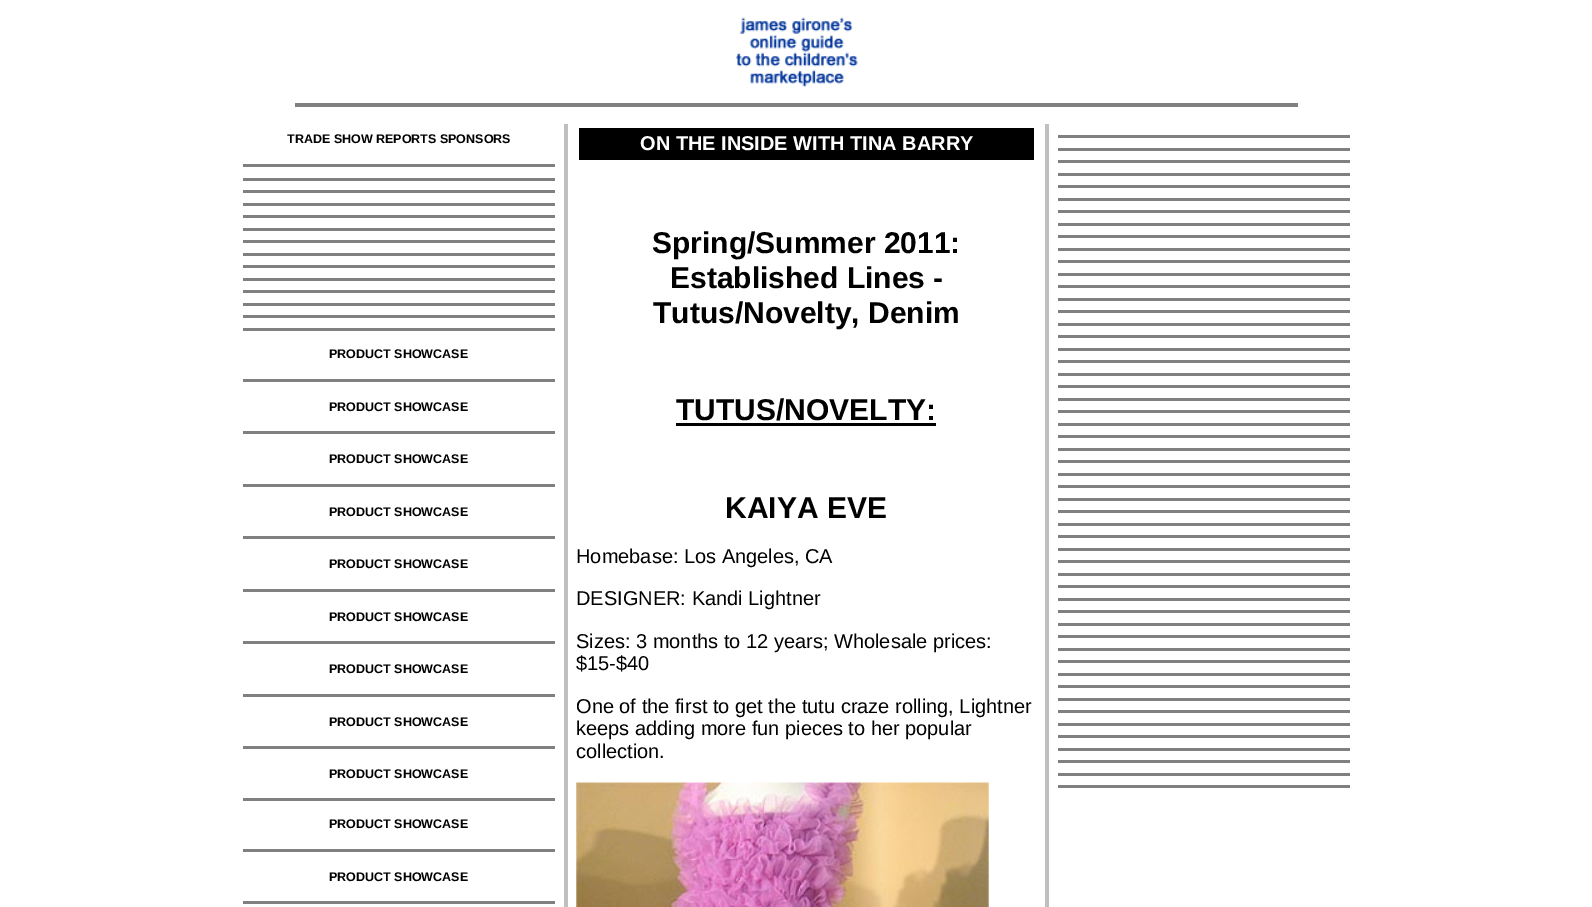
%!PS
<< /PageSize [1592 907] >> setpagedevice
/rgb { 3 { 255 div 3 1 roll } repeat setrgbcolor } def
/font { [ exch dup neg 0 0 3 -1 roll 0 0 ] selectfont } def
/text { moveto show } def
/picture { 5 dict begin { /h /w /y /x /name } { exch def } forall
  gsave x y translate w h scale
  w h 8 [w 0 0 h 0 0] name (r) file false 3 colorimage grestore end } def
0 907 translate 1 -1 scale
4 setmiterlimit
255 255 255 rgb
0 0 1592 907 rectfill
(img_01.rgb) 736 17 122 70 picture
128 128 128 rgb
295 103 1003 4 rectfill
243 164 312 3 rectfill
243 178 312 3 rectfill
243 190 312 3 rectfill
243 203 312 3 rectfill
243 215 312 3 rectfill
243 228 312 3 rectfill
243 240 312 3 rectfill
243 253 312 3 rectfill
243 265 312 3 rectfill
243 278 312 3 rectfill
243 290 312 3 rectfill
243 303 312 3 rectfill
243 315 312 3 rectfill
243 328 312 3 rectfill
243 379 312 3 rectfill
243 431 312 3 rectfill
243 484 312 3 rectfill
243 536 312 3 rectfill
243 589 312 3 rectfill
243 641 312 3 rectfill
243 694 312 3 rectfill
243 746 312 3 rectfill
243 798 312 3 rectfill
243 849 312 3 rectfill
243 901 312 3 rectfill
191 191 191 rgb
564 124 4 783 rectfill
0 0 0 rgb
579 128 455 32 rectfill
676 423 260 3 rectfill
(img_02.rgb) 576 782 413 125 picture
191 191 191 rgb
1045 124 4 783 rectfill
128 128 128 rgb
1058 135 292 3 rectfill
1058 148 292 3 rectfill
1058 160 292 3 rectfill
1058 173 292 3 rectfill
1058 185 292 3 rectfill
1058 198 292 3 rectfill
1058 210 292 3 rectfill
1058 223 292 3 rectfill
1058 235 292 3 rectfill
1058 248 292 3 rectfill
1058 260 292 3 rectfill
1058 273 292 3 rectfill
1058 285 292 3 rectfill
1058 298 292 3 rectfill
1058 310 292 3 rectfill
1058 323 292 3 rectfill
1058 335 292 3 rectfill
1058 348 292 3 rectfill
1058 360 292 3 rectfill
1058 373 292 3 rectfill
1058 385 292 3 rectfill
1058 398 292 3 rectfill
1058 410 292 3 rectfill
1058 423 292 3 rectfill
1058 435 292 3 rectfill
1058 448 292 3 rectfill
1058 460 292 3 rectfill
1058 473 292 3 rectfill
1058 485 292 3 rectfill
1058 498 292 3 rectfill
1058 510 292 3 rectfill
1058 523 292 3 rectfill
1058 535 292 3 rectfill
1058 548 292 3 rectfill
1058 560 292 3 rectfill
1058 573 292 3 rectfill
1058 585 292 3 rectfill
1058 598 292 3 rectfill
1058 610 292 3 rectfill
1058 623 292 3 rectfill
1058 635 292 3 rectfill
1058 648 292 3 rectfill
1058 660 292 3 rectfill
1058 673 292 3 rectfill
1058 685 292 3 rectfill
1058 698 292 3 rectfill
1058 710 292 3 rectfill
1058 723 292 3 rectfill
1058 735 292 3 rectfill
1058 748 292 3 rectfill
1058 760 292 3 rectfill
1058 773 292 3 rectfill
1058 785 292 3 rectfill
/LiberationSans-Bold 12.5 font
0 0 0 rgb
(TRADE SHOW REPORTS SPONSORS) 287 143 text
(PRODUCT SHOWCASE) 329 358 text
(PRODUCT SHOWCASE) 329 411 text
(PRODUCT SHOWCASE) 329 463 text
(PRODUCT SHOWCASE) 329 516 text
(PRODUCT SHOWCASE) 329 568 text
(PRODUCT SHOWCASE) 329 621 text
(PRODUCT SHOWCASE) 329 673 text
(PRODUCT SHOWCASE) 329 726 text
(PRODUCT SHOWCASE) 329 778 text
(PRODUCT SHOWCASE) 329 828 text
(PRODUCT SHOWCASE) 329 881 text
/LiberationSans-Bold 20 font
255 255 255 rgb
(ON THE INSIDE WITH TINA BARRY) 640 150 text
/LiberationSans-Bold 30 font
0 0 0 rgb
(Spring/Summer 2011:) 652 253 text
(Established Lines -) 670 288 text
(Tutus/Novelty, Denim) 653 323 text
(TUTUS/NOVELTY:) 676 420 text
(KAIYA EVE) 725 518 text
/LiberationSans-Regular 20 font
(Homebase: Los Angeles, CA) 576 563 text
(DESIGNER: Kandi Lightner) 576 605 text
(Sizes: 3 months to 12 years; Wholesale prices:) 576 648 text
($15-$40) 576 670 text
(One of the first to get the tutu craze rolling, Lightner) 576 713 text
(keeps adding more fun pieces to her popular) 576 735 text
(collection.) 576 758 text
showpage
